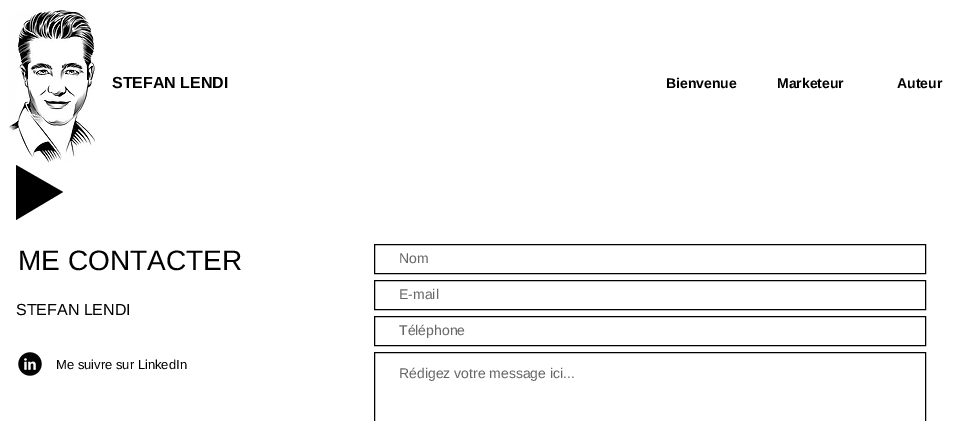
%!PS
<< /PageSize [976 421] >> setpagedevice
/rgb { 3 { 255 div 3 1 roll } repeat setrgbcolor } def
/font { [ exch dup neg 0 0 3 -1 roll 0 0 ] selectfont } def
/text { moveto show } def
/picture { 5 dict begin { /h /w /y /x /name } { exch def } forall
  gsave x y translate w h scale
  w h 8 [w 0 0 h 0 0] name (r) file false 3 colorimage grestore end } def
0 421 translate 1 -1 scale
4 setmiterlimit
255 255 255 rgb
0 0 976 421 rectfill
(img_01.rgb) 9 10 86 153 picture
0 0 0 rgb
63 192 moveto -47 28 rlineto 0 -55 rlineto closepath fill
374.5 244.5 551 29 rectstroke
374.5 280.5 551 29 rectstroke
374.5 316.5 551 29 rectstroke
374.5 352.5 551 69 rectstroke
(img_02.rgb) 18 352 24 24 picture
/LiberationSans-Bold 16 font
(STEFAN LENDI) 112 88 text
/LiberationSans-Bold 14 font
(Bienvenue) 666 88 text
(Marketeur) 777 88 text
(Auteur) 897 88 text
/LiberationSans-Regular 28 font
(ME CONTACTER) 18 270 text
/LiberationSans-Regular 14 font
102 102 102 rgb
(Nom) 399 263 text
(E-mail) 399 299 text
(Téléphone) 399 335 text
(Rédigez votre message ici...) 399 378 text
/LiberationSans-Regular 16 font
0 0 0 rgb
(STEFAN LENDI) 16 315 text
/LiberationSans-Regular 13 font
(Me suivre sur LinkedIn) 56 369 text
showpage
